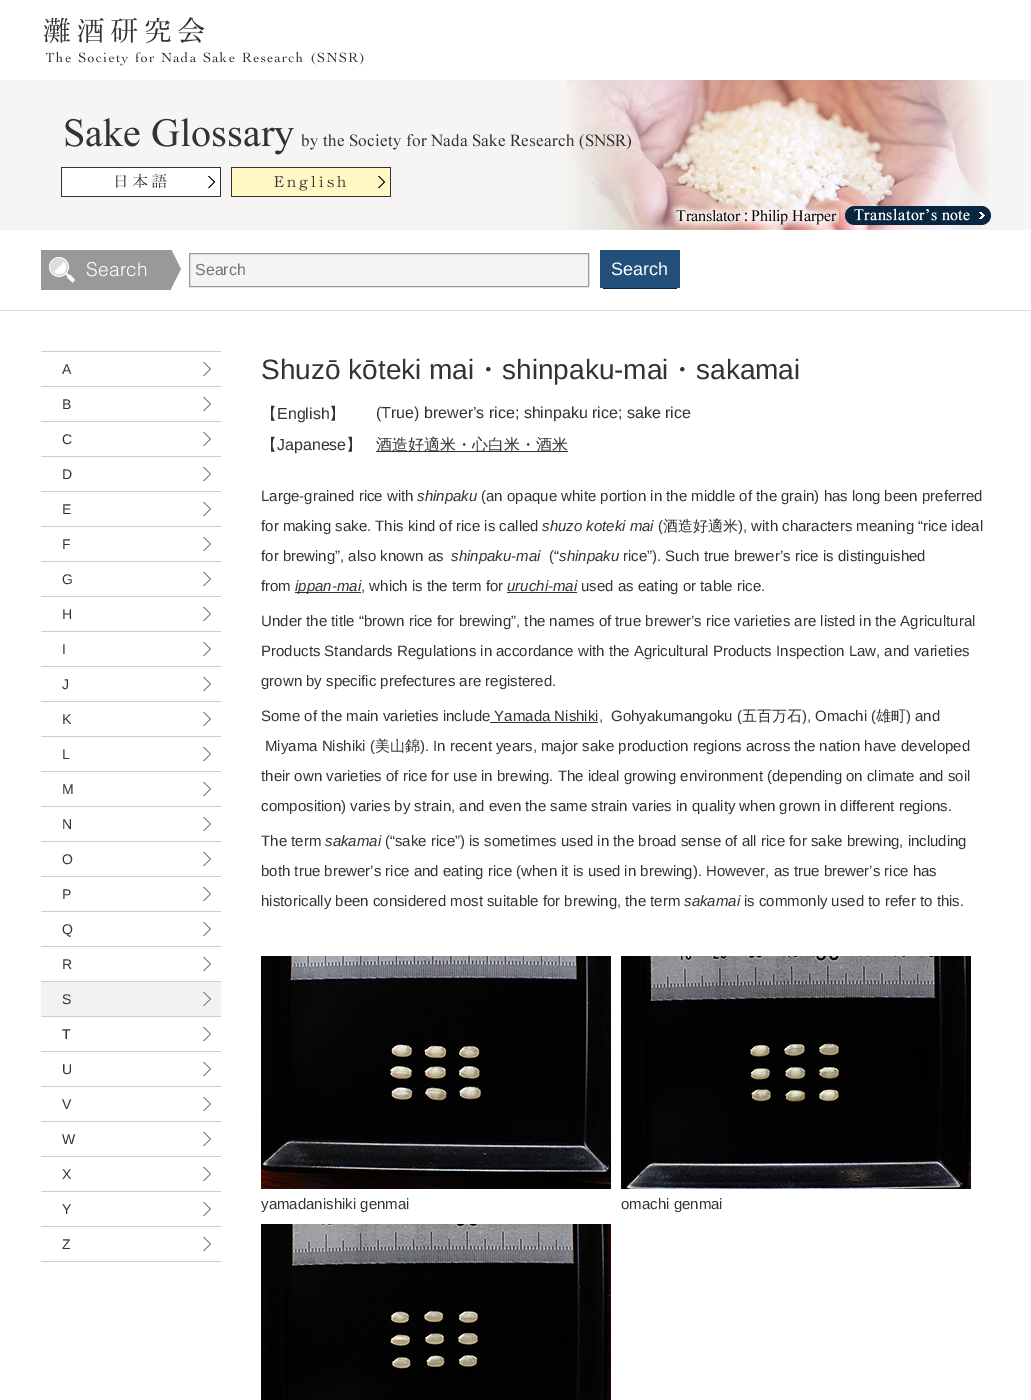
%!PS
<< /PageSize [1031 1400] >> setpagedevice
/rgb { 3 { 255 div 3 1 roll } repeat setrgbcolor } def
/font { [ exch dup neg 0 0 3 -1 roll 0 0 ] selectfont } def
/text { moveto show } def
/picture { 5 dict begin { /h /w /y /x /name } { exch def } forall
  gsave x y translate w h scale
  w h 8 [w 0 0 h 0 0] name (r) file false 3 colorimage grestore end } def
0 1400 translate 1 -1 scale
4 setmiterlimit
255 255 255 rgb
0 0 1031 1400 rectfill
224 220 219 rgb
0 310 1031 1 rectfill
(img_01.rgb) 43 17 321 49 picture
247 245 243 rgb
0 80 1031 150 rectfill
(img_02.rgb) 567 80 421 150 picture
(img_03.rgb) 65 118 566 37 picture
(img_04.rgb) 61 167 160 30 picture
(img_05.rgb) 231 167 160 30 picture
(img_06.rgb) 669 203 170 27 picture
(img_07.rgb) 841 206 150 19 picture
(img_08.rgb) 41 250 140 40 picture
244 244 244 rgb
189.5 253.5 moveto 399 0 rlineto 0 33 rlineto -399 0 rlineto closepath gsave fill grestore
153 153 153 rgb
stroke
34 80 122 rgb
600 250 80 38 rectfill
9 38 65 rgb
603 288 74 1 rectfill
204 204 204 rgb
41 1261 180 1 rectfill
(img_09.rgb) 203 362 8 14 picture
41 351 180 1 rectfill
(img_09.rgb) 203 397 8 14 picture
41 386 180 1 rectfill
(img_09.rgb) 203 432 8 14 picture
41 421 180 1 rectfill
(img_09.rgb) 203 467 8 14 picture
41 456 180 1 rectfill
(img_09.rgb) 203 502 8 14 picture
41 491 180 1 rectfill
(img_09.rgb) 203 537 8 14 picture
41 526 180 1 rectfill
(img_09.rgb) 203 572 8 14 picture
41 561 180 1 rectfill
(img_09.rgb) 203 607 8 14 picture
41 596 180 1 rectfill
(img_09.rgb) 203 642 8 14 picture
41 631 180 1 rectfill
(img_09.rgb) 203 677 8 14 picture
41 666 180 1 rectfill
(img_09.rgb) 203 712 8 14 picture
41 701 180 1 rectfill
(img_09.rgb) 203 747 8 14 picture
41 736 180 1 rectfill
(img_09.rgb) 203 782 8 14 picture
41 771 180 1 rectfill
(img_09.rgb) 203 817 8 14 picture
41 806 180 1 rectfill
(img_09.rgb) 203 852 8 14 picture
41 841 180 1 rectfill
(img_09.rgb) 203 887 8 14 picture
41 876 180 1 rectfill
(img_09.rgb) 203 922 8 14 picture
41 911 180 1 rectfill
(img_09.rgb) 203 957 8 14 picture
41 946 180 1 rectfill
242 242 242 rgb
41 982 180 34 rectfill
(img_10.rgb) 203 992 8 14 picture
204 204 204 rgb
41 981 180 1 rectfill
(img_09.rgb) 203 1027 8 14 picture
41 1016 180 1 rectfill
(img_09.rgb) 203 1062 8 14 picture
41 1051 180 1 rectfill
(img_09.rgb) 203 1097 8 14 picture
41 1086 180 1 rectfill
(img_09.rgb) 203 1132 8 14 picture
41 1121 180 1 rectfill
(img_09.rgb) 203 1167 8 14 picture
41 1156 180 1 rectfill
(img_09.rgb) 203 1202 8 14 picture
41 1191 180 1 rectfill
(img_09.rgb) 203 1237 8 14 picture
41 1226 180 1 rectfill
51 51 51 rgb
376 451 192 1 rectfill
295 592 66 1 rectfill
507 592 70 1 rectfill
490 722 108 1 rectfill
(img_11.rgb) 261 956 350 233 picture
(img_12.rgb) 621 956 350 233 picture
(img_13.rgb) 261 1224 350 176 picture
/LiberationSans-Regular 16 font
117 117 117 rgb
(Search) 195 275 text
/LiberationSans-Regular 18 font
255 255 255 rgb
(Search) 611 275 text
/LiberationSans-Regular 14 font
51 51 51 rgb
(A) 62 374 text
(B) 62 409 text
(C) 62 444 text
(D) 62 479 text
(E) 62 514 text
(F) 62 549 text
(G) 62 584 text
(H) 62 619 text
(I) 62 654 text
(J) 62 689 text
(K) 62 724 text
(L) 62 759 text
(M) 62 794 text
(N) 62 829 text
(O) 62 864 text
(P) 62 899 text
(Q) 62 934 text
(R) 62 969 text
(S) 62 1004 text
(T) 62 1039 text
(U) 62 1074 text
(V) 62 1109 text
(W) 62 1144 text
(X) 62 1179 text
(Y) 62 1214 text
(Z) 62 1249 text
/LiberationSans-Regular 28 font
(Shuzō kōteki mai) 261 379 text
/WenQuanYiZenHei-Medium 28 font
(・) 474 379 text
/LiberationSans-Regular 28 font
(shinpaku-mai) 502 379 text
/WenQuanYiZenHei-Medium 28 font
(・) 668 379 text
/LiberationSans-Regular 28 font
(sakamai) 696 379 text
/WenQuanYiZenHei-Medium 16 font
(【) 261 419 text
/LiberationSans-Regular 16 font
(English) 277 419 text
/WenQuanYiZenHei-Medium 16 font
(】) 329 419 text
/LiberationSans-Regular 16 font
(\(True\) brewer’s rice; shinpaku rice; sake rice) 376 418 text
/WenQuanYiZenHei-Medium 16 font
(【) 261 450 text
/LiberationSans-Regular 16 font
(Japanese) 277 450 text
/WenQuanYiZenHei-Medium 16 font
(】) 346 450 text
(酒造好適米・心白米・酒米) 376 450 text
/LiberationSans-Regular 15 font
(Large-grained rice with) 261 501 text
/LiberationSans-Italic 15 font
(shinpaku) 417 501 text
/LiberationSans-Regular 15 font
(\(an opaque white portion in the middle of the grain\) has long been preferred) 481 501 text
(for making sake. This kind of rice is called) 261 531 text
/LiberationSans-Italic 15 font
(shuzo koteki mai) 542 531 text
/LiberationSans-Regular 15 font
(\() 658 531 text
/WenQuanYiZenHei-Medium 15 font
(酒造好適米) 663 531 text
/LiberationSans-Regular 15 font
(\), with characters meaning “rice ideal) 738 531 text
(for brewing”, also known as) 261 561 text
/LiberationSans-Italic 15 font
(shinpaku-mai) 451 561 text
/LiberationSans-Regular 15 font
(\(“) 549 561 text
/LiberationSans-Italic 15 font
(shinpaku) 559 561 text
/LiberationSans-Regular 15 font
(rice”\). Such true brewer’s rice is distinguished) 623 561 text
(from) 261 591 text
/LiberationSans-Italic 15 font
(ippan-mai) 295 591 text
/LiberationSans-Regular 15 font
(, which is the term for) 361 591 text
/LiberationSans-Italic 15 font
(uruchi-mai) 507 591 text
/LiberationSans-Regular 15 font
(used as eating or table rice.) 581 591 text
(Under the title “brown rice for brewing”, the names of true brewer’s rice varieties are listed in the Agricultural) 261 626 text
(Products Standards Regulations in accordance with the Agricultural Products Inspection Law, and varieties) 261 656 text
(grown by specific prefectures are registered.) 261 686 text
(Some of the main varieties include Yamada Nishiki,  Gohyakumangoku \() 261 721 text
/WenQuanYiZenHei-Medium 15 font
(五百万石) 742 721 text
/LiberationSans-Regular 15 font
(\), Omachi \() 802 721 text
/WenQuanYiZenHei-Medium 15 font
(雄町) 876 721 text
/LiberationSans-Regular 15 font
(\) and) 906 721 text
(Miyama Nishiki \() 265 751 text
/WenQuanYiZenHei-Medium 15 font
(美山錦) 375 751 text
/LiberationSans-Regular 15 font
(\). In recent years, major sake production regions across the nation have developed) 420 751 text
(their own varieties of rice for use in brewing. The ideal growing environment \(depending on climate and soil) 261 781 text
(composition\) varies by strain, and even the same strain varies in quality when grown in different regions.) 261 811 text
(The term) 261 846 text
/LiberationSans-Italic 15 font
(sakamai) 325 846 text
/LiberationSans-Regular 15 font
(\(“sake rice”\) is sometimes used in the broad sense of all rice for sake brewing, including) 385 846 text
(both true brewer’s rice and eating rice \(when it is used in brewing\). However, as true brewer’s rice has) 261 876 text
(historically been considered most suitable for brewing, the term) 261 906 text
/LiberationSans-Italic 15 font
(sakamai) 684 906 text
/LiberationSans-Regular 15 font
(is commonly used to refer to this.) 744 906 text
(yamadanishiki genmai) 261 1209 text
(omachi genmai) 621 1209 text
showpage
